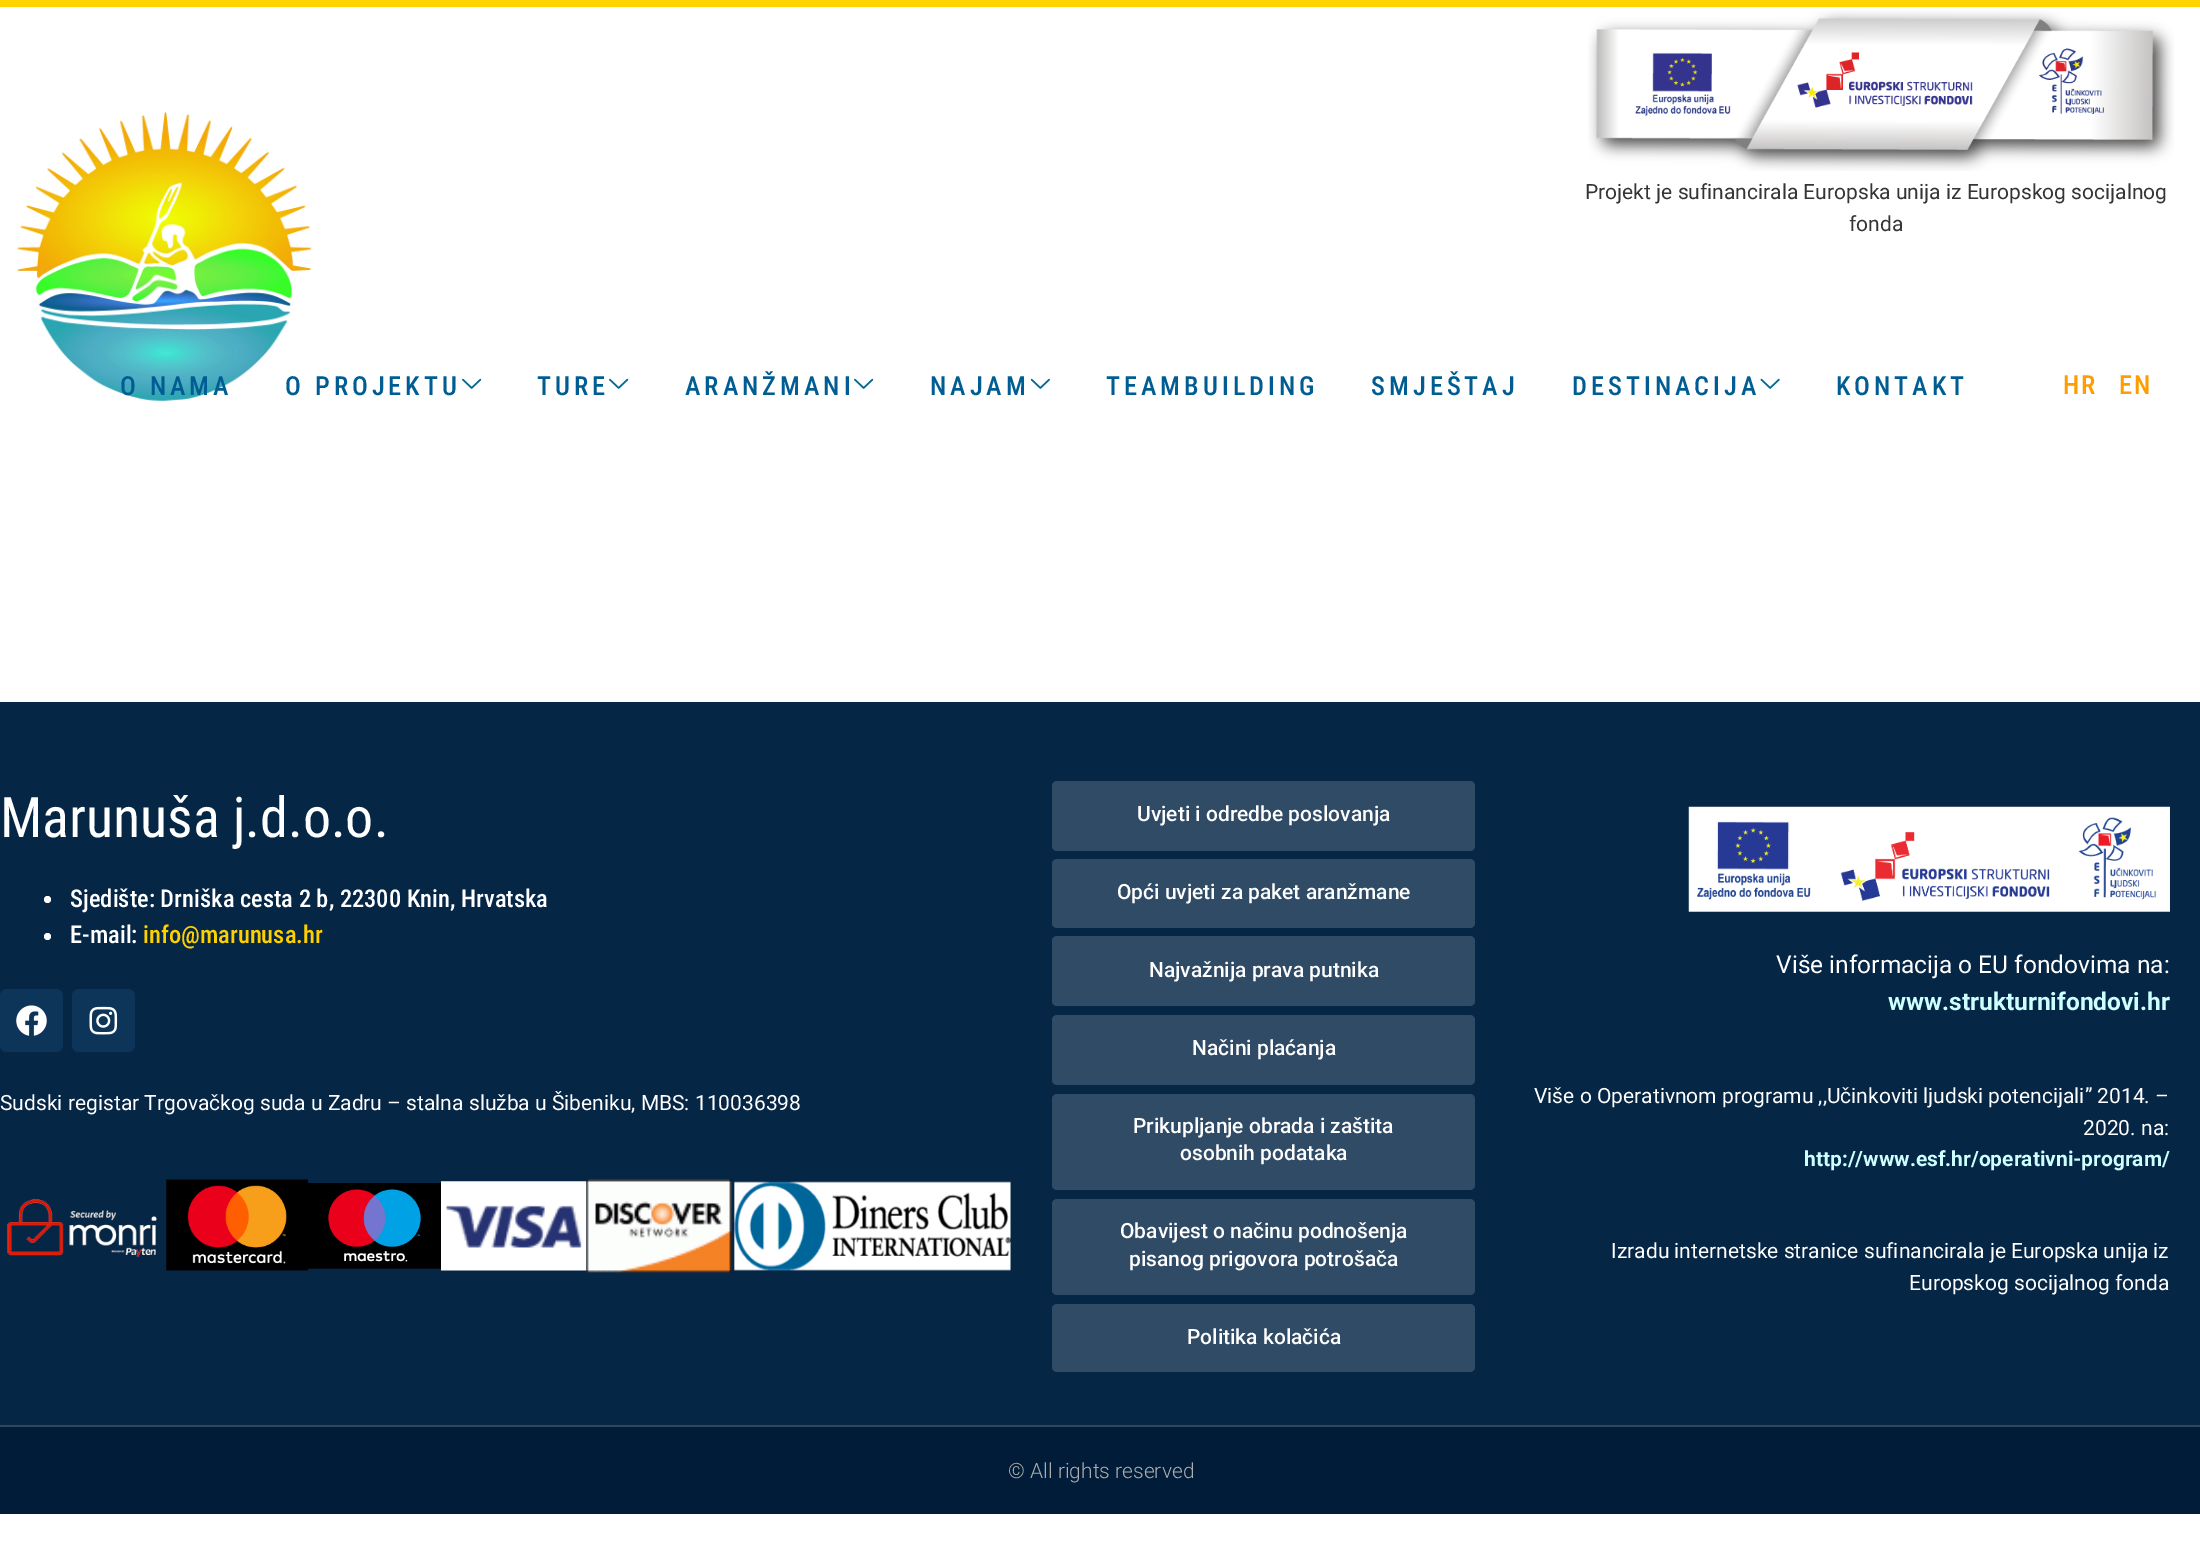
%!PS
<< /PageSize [2200 1548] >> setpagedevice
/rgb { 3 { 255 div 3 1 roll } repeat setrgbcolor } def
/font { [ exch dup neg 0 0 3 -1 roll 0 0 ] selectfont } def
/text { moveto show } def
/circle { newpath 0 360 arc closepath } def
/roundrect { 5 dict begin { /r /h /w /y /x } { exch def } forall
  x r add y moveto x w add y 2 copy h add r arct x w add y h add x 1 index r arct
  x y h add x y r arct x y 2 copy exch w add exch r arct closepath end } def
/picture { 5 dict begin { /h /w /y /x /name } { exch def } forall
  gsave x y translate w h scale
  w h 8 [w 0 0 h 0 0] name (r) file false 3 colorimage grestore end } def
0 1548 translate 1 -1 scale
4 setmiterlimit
255 255 255 rgb
0 0 2200 1548 rectfill
255 213 0 rgb
0 0 2200 7 rectfill
(img_01.rgb) 17 112 295 289 picture
(img_02.rgb) 1588 10 586 161 picture
(img_03.rgb) 462 378 20 11 picture
(img_03.rgb) 609 378 20 11 picture
(img_03.rgb) 854 378 20 11 picture
(img_04.rgb) 1030 378 20 11 picture
(img_05.rgb) 1760 378 20 11 picture
6 38 70 rgb
0 702 2200 723 rectfill
255 255 255 rgb
47.5 899.5 3.5 circle fill
47.5 936.5 3.5 circle fill
13 53 89 rgb
0 989 63 63 7 roundrect fill
(img_06.rgb) 16 1005 31 31 picture
72 989 63 63 7 roundrect fill
(img_07.rgb) 89 1006 29 29 picture
(img_08.rgb) 7 1199 150 59 picture
(img_09.rgb) 166 1179 142 92 picture
(img_10.rgb) 308 1183 133 86 picture
(img_11.rgb) 441 1181 146 90 picture
(img_12.rgb) 586 1179 146 94 picture
(img_13.rgb) 734 1181 277 90 picture
48 75 101 rgb
1052 781 423 70 5 roundrect fill
1052 859 423 69 5 roundrect fill
1052 936 423 70 5 roundrect fill
1052 1015 423 70 5 roundrect fill
1052 1094 423 96 5 roundrect fill
1052 1199 423 96 5 roundrect fill
1052 1304 423 68 5 roundrect fill
(img_14.rgb) 1688 806 482 106 picture
0 28 56 rgb
0 1427 2200 87 rectfill
48 71 94 rgb
0 1425 2200 2 rectfill
/Roboto-Regular 21 font
53 53 53 rgb
(Projekt je sufinancirala Europska unija iz Europskog socijalnog) 1585 199 text
(fonda) 1849 231 text
/RobotoCondensed-Medium 26.25 font
0 93 147 rgb
120 395 moveto 4 0 (O NAMA) ashow
285 395 moveto 4 0 (O PROJEKTU) ashow
537 395 moveto 4 0 (TURE) ashow
685 395 moveto 4 0 (ARANŽMANI) ashow
930 395 moveto 4 0 (NAJAM) ashow
1106 395 moveto 4 0 (TEAMBUILDING) ashow
1371 395 moveto 4 0 (SMJEŠTAJ) ashow
1572 395 moveto 4 0 (DESTINACIJA) ashow
1836 395 moveto 4 0 (KONTAKT) ashow
255 157 0 rgb
2063 394 moveto 2 0 (HR) ashow
2119 394 moveto 2 0 (EN) ashow
/RobotoCondensed-Regular 56 font
255 255 255 rgb
(Marunuša j.d.o.o.) 0 837 text
/RobotoCondensed-Medium 24.5 font
(Sjedište: Drniška cesta 2 b, 22300 Knin, Hrvatska) 70 907 text
(E-mail:) 70 943 text
255 208 0 rgb
(info@marunusa.hr) 143 943 text
/Roboto-Regular 21 font
255 255 255 rgb
(Sudski registar Trgovačkog suda u Zadru – stalna služba u Šibeniku, MBS: 110036398) 0 1110 text
/Roboto-Medium 21 font
(Uvjeti i odredbe poslovanja) 1137 821 text
(Opći uvjeti za paket aranžmane) 1117 899 text
(Najvažnija prava putnika) 1149 977 text
(Načini plaćanja) 1192 1055 text
(Prikupljanje obrada i zaštita) 1133 1133 text
(osobnih podataka) 1180 1160 text
(Obavijest o načinu podnošenja) 1120 1238 text
(pisanog prigovora potrošača) 1129 1266 text
(Politika kolačića) 1187 1344 text
/Roboto-Regular 24.5 font
(Više informacija o EU fondovima na:) 1776 973 text
/Roboto-Bold 24.5 font
204 255 255 rgb
(www.strukturnifondovi.hr) 1888 1010 text
/Roboto-Regular 21 font
255 255 255 rgb
(Više o Operativnom programu ,,Učinkoviti ljudski potencijali” 2014. –) 1534 1103 text
(2020. na:) 2083 1135 text
/Roboto-Bold 21 font
204 255 255 rgb
(http://www.esf.hr/operativni-program/) 1804 1166 text
/Roboto-Regular 21 font
255 255 255 rgb
(Izradu internetske stranice sufinancirala je Europska unija iz) 1611 1258 text
(Europskog socijalnog fonda) 1909 1290 text
/Roboto-Light 21 font
173 173 173 rgb
(© All rights reserved) 1008 1478 text
showpage
